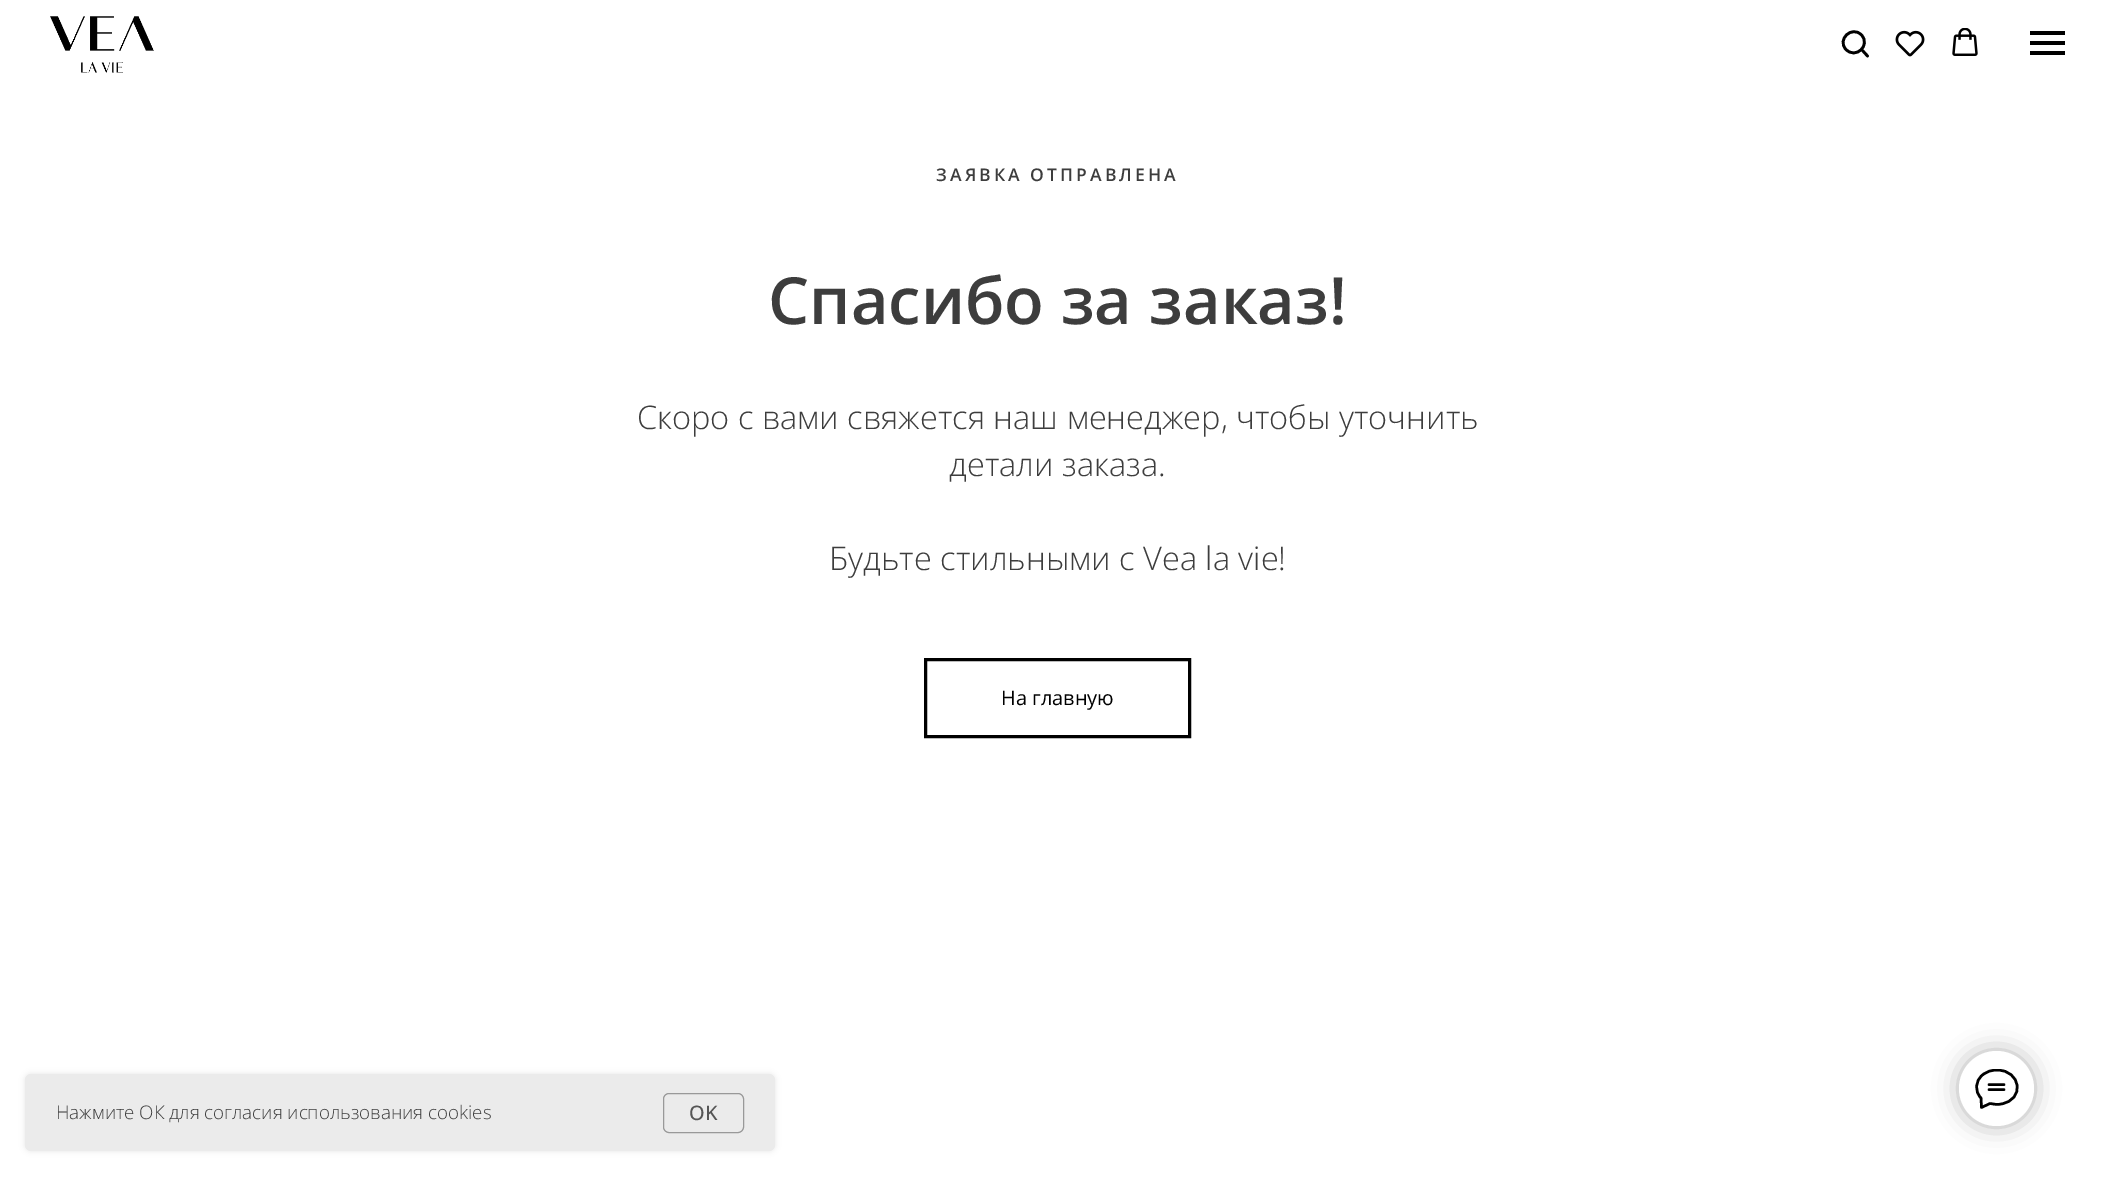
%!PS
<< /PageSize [2114 1188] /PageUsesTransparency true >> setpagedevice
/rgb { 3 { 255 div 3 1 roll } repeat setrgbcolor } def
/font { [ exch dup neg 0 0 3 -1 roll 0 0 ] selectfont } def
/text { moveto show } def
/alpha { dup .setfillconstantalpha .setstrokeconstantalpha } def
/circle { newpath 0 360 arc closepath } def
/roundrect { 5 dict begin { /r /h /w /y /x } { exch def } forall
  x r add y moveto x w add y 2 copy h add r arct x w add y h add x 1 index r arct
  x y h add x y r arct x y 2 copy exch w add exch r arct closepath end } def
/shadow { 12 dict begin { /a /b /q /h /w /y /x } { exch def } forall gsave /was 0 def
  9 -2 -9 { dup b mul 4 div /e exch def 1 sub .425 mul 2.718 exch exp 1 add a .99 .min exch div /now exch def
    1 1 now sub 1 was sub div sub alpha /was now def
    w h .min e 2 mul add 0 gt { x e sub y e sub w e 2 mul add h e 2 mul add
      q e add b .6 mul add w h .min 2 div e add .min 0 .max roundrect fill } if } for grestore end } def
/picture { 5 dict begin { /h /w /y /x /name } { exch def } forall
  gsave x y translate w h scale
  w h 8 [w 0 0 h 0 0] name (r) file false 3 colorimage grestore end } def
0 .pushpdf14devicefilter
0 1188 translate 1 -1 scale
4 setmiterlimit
255 255 255 rgb
0 0 2114 1188 rectfill
0 0 0 rgb
3 setlinewidth
925.5 659.5 264 77 rectstroke
(img_01.rgb) 50 16 104 57 picture
2.7 setlinewidth
1861.5 35 moveto 9.5 10.5 -6 24.5 -15.5 14.5 rcurveto -9.5 -10 6 -24.5 15.5 -14.5 rcurveto closepath stroke
1 setlinecap
1862.5 50.5 moveto 5 5.5 rlineto stroke
(img_02.rgb) 1895 30 30 27 picture
(img_03.rgb) 1952 28 26 28 picture
2030 31 35 4 rectfill
2030 41 35 4 rectfill
2030 51 35 4 rectfill
25 1074 750 77 6 3 0.1 shadow
235 235 235 rgb
25 1074 750 77 6 roundrect fill
153 153 153 rgb
1 setlinewidth
0 setlinecap
663.5 1093.5 80 39 5.5 roundrect stroke
0 0 0 rgb
1959 1051 75 75 37.5 12.5 0.3 shadow
255 255 255 rgb
1996.5 1088.5 37.5 circle fill
gsave
1975 1069 44 40 rectclip
0 0 0 rgb
2.5 setlinewidth
1 setlinecap
1 setlinejoin
1989 1084.5 moveto 15 0 rlineto 1989 1089.5 moveto 15 0 rlineto 1981 1098 moveto -6.5 -6.5 -6 -17 1.5 -23 rcurveto 4 -3.5 9 -5 14.5 -5 rcurveto 24 0 28.5 30 4 34 rcurveto -4 1 -7 0 -11 -0.5 rcurveto -8.5 4 rlineto closepath stroke
grestore
/OpenSans-SemiBold 17.5 font
61 61 61 rgb
936 181 moveto 3.1 0 (ЗАЯВКА ОТПРАВЛЕНА) ashow
/OpenSans-SemiBold 65 font
(Спасибо за заказ!) 768 324 text
/OpenSans-Light 32.5 font
(Скоро с вами свяжется наш менеджер, чтобы уточнить) 637 429 text
(детали заказа.) 949 476 text
(Будьте стильными с Vea la vie!) 829 570 text
/OpenSans-Regular 20 font
0 0 0 rgb
(На главную) 1001 705 text
/OpenSans-Light 18.75 font
61 61 61 rgb
(Нажмите ОК для согласия использования cookies) 56 1119 text
/OpenSans-Medium 20 font
85 85 85 rgb
(OK) 689 1120 text
.poppdf14devicefilter showpage
